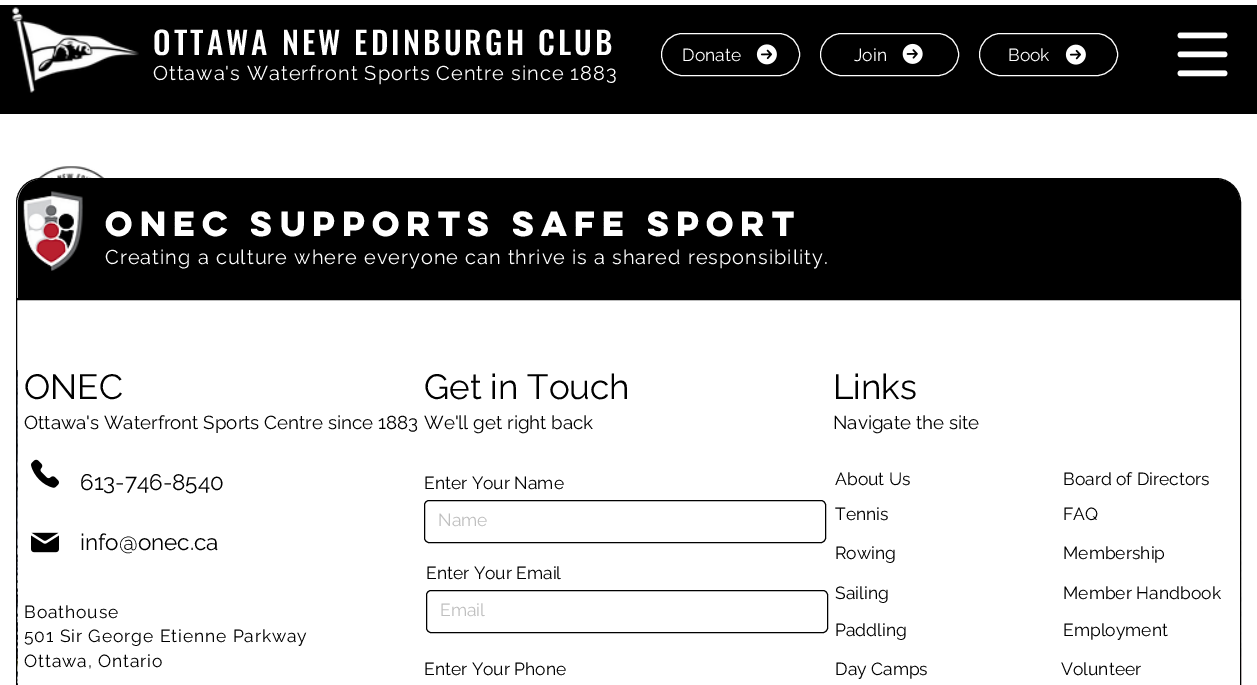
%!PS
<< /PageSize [1257 685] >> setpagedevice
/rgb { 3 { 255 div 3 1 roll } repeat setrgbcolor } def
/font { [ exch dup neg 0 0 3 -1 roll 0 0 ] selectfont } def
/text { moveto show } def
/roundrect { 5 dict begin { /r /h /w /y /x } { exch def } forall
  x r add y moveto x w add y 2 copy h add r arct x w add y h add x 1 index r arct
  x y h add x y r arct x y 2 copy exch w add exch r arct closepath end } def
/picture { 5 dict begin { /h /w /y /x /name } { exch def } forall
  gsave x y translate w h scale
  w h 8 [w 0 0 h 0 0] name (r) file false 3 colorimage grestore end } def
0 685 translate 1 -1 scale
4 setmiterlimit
255 255 255 rgb
0 0 1257 685 rectfill
0 0 0 rgb
0 5 1257 109 rectfill
(img_01.rgb) 36 166 69 14 picture
(img_02.rgb) 17 370 1225 315 picture
(img_03.rgb) 12 7 127 86 picture
255 255 255 rgb
661.5 33.5 138 42 21 roundrect stroke
(img_04.rgb) 756 44 21 21 picture
820.5 33.5 138 42 21 roundrect stroke
(img_05.rgb) 902 43 21 21 picture
979.5 33.5 138 42 21 roundrect stroke
(img_06.rgb) 1065 44 21 21 picture
(img_07.rgb) 1177 32 51 45 picture
0 0 0 rgb
41 178.5 moveto 1175 0 rlineto 13.5 0 24.5 11 24.5 24.5 rcurveto 0 95.5 rlineto -1224 0 rlineto 0 -95.5 rlineto 0 -13.5 11 -24.5 24.5 -24.5 rcurveto closepath stroke
42 179 moveto 1174 0 rlineto 13.5 0 24 10.5 24 24 rcurveto 0 95 rlineto -1222 0 rlineto 0 -95 rlineto 0 -13.5 10.5 -24 24 -24 rcurveto closepath fill
(img_08.rgb) 23 191 60 80 picture
16.5 299.5 1224 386 rectstroke
255 255 255 rgb
18 370 1222 315 rectfill
(img_09.rgb) 31 459 28 29 picture
(img_10.rgb) 31 532 28 21 picture
0 0 0 rgb
424.5 500.5 401 42 4.5 roundrect stroke
426.5 590.5 401 42 4.5 roundrect stroke
/Oswald-Medium 31.25 font
255 255 255 rgb
153 55 moveto 3.1 0 (OTTAWA NEW EDINBURGH CLUB) ashow
/Raleway-Regular 20 font
153 80 moveto 1 0 (Ottawa's Waterfront Sports Centre since 1883) ashow
/Raleway-Regular 17.5 font
(Donate) 682 61 text
(Join) 854 61 text
(Book) 1008 61 text
/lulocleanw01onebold-Bold 31.25 font
(ONEC SUPPORTS SAFE SPORT) 105 236 text
/Raleway-Regular 20 font
105 264 moveto 1 0 (Creating a culture where everyone can thrive is a shared responsibility.) ashow
/Raleway-Regular 35 font
0 0 0 rgb
(ONEC) 24 399 text
/Raleway-Regular 18.75 font
(Ottawa's Waterfront Sports Centre since 1883) 24 429 text
/Raleway-Regular 22.5 font
(613-746-8540) 80 490 text
(info@onec.ca) 80 550 text
/Raleway-Regular 17.5 font
24 618 moveto 0.9 0 (Boathouse) ashow
24 642 moveto 0.9 0 (501 Sir George Etienne Parkway) ashow
24 667 moveto 0.9 0 (Ottawa, Ontario) ashow
/Raleway-Regular 35 font
(Get in Touch) 424 399 text
/Raleway-Regular 18.75 font
(We'll get right back) 424 429 text
/Raleway-Regular 17.5 font
(Enter Your Name) 424 489 text
191 191 191 rgb
(Name) 438 526 text
0 0 0 rgb
(Enter Your Email) 426 579 text
191 191 191 rgb
(Email) 440 616 text
0 0 0 rgb
(Enter Your Phone) 424 675 text
/Raleway-Regular 35 font
(Links) 833 399 text
/Raleway-Regular 18.75 font
(Navigate the site) 833 429 text
/Raleway-Regular 17.5 font
(About Us) 835 485 text
(Board of Directors) 1063 485 text
(Tennis) 835 520 text
(FAQ) 1063 520 text
(Rowing) 835 559 text
(Membership) 1063 559 text
(Sailing) 835 599 text
(Member Handbook) 1063 599 text
(Paddling) 835 636 text
(Employment) 1063 636 text
(Day Camps) 835 675 text
(Volunteer) 1061 675 text
showpage
